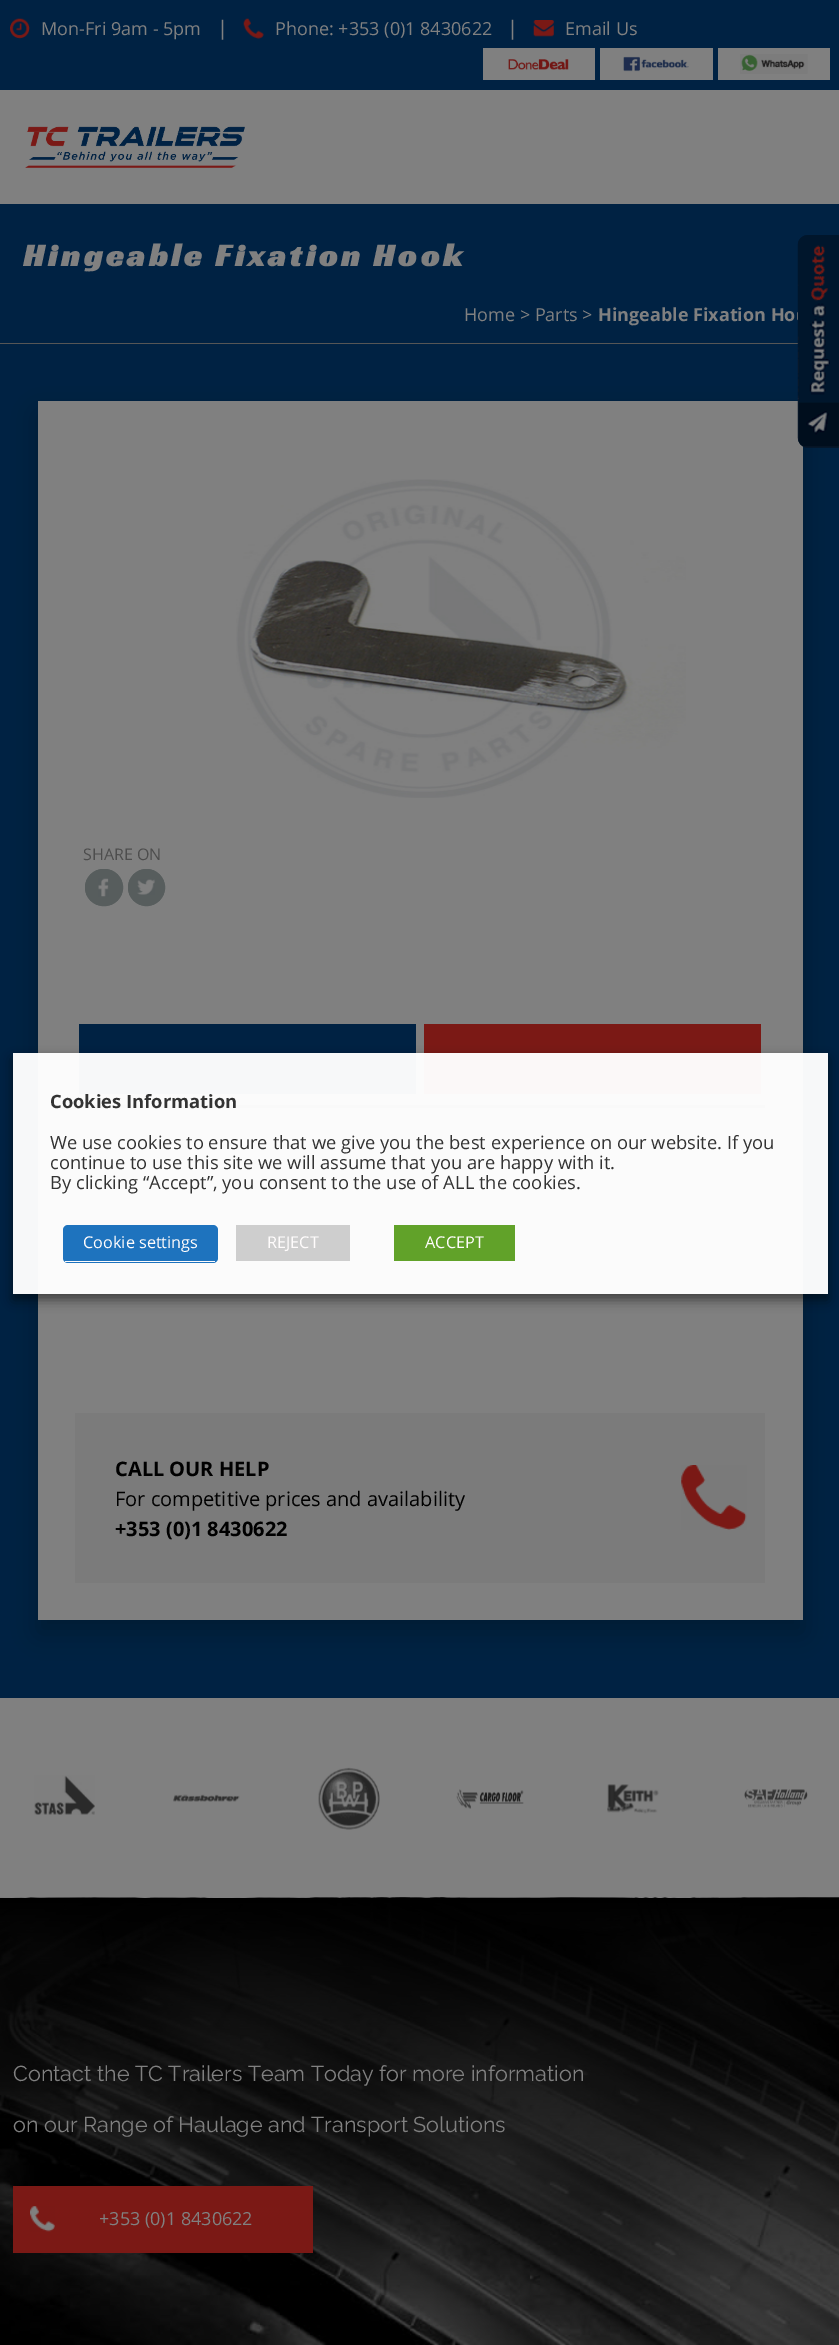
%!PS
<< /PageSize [839 2345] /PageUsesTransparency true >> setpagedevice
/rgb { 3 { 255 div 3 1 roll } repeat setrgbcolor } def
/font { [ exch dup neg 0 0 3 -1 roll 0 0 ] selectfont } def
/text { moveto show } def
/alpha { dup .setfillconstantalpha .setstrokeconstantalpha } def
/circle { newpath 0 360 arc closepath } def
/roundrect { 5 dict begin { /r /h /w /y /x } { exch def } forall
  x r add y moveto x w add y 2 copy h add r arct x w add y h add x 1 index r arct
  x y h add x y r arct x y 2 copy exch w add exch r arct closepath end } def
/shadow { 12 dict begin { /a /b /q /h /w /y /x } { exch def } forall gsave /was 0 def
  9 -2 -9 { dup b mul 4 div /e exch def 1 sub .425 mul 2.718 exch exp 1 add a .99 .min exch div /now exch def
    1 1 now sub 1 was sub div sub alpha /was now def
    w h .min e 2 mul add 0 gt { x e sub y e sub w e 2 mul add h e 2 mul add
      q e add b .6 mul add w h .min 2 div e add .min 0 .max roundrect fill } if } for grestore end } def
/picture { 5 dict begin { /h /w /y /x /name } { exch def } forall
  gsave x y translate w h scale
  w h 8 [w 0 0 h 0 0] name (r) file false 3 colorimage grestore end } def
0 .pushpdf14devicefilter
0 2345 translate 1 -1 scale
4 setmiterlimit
0 34 67 rgb
0 0 839 2345 rectfill
(img_01.rgb) 10 18 20 21 picture
(img_02.rgb) 243 18 21 21 picture
(img_03.rgb) 533 20 21 17 picture
128 128 128 rgb
483 48 112 32 rectfill
(img_04.rgb) 508 59 61 11 picture
600 48 113 32 rectfill
(img_05.rgb) 623 56 66 16 picture
718 48 112 32 rectfill
(img_06.rgb) 740 54 68 20 picture
0 90 839 114 rectfill
(img_07.rgb) 25 126 220 42 picture
86 86 86 rgb
0 343 798 1 rectfill
0 0 0 rgb
38 414 765 1219 0 12.5 0.2 shadow
128 128 128 rgb
38 401 765 1219 rectfill
1 23 44 rgb
808 235 moveto 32 0 rlineto 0 213 rlineto -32 0 rlineto -5.5 0 -10 -4.5 -10 -10 rcurveto 0 -193 rlineto 0 -5.5 4.5 -10 10 -10 rcurveto closepath fill
(img_08.rgb) 797 235 42 213 picture
(img_09.rgb) 236 479 450 319 picture
87 93 93 rgb
85 869 38 37 18.5 roundrect fill
(img_10.rgb) 98 878 11 19 picture
85.5 869.5 37 36 18 roundrect stroke
146.5 887.5 18.5 circle fill
(img_11.rgb) 137 879 18 16 picture
146.5 887.5 18 circle stroke
56 56 56 rgb
75 1105 690 3 rectfill
0 34 67 rgb
79 1024 337 70 rectfill
123 25 21 rgb
424 1024 337 70 rectfill
123 123 123 rgb
75 1413 690 170 rectfill
(img_12.rgb) 681 1465 66 65 picture
128 128 128 rgb
0 1698 839 199 rectfill
(img_13.rgb) 34 1775 61 40 picture
(img_14.rgb) 173 1794 67 8 picture
(img_15.rgb) 318 1767 62 63 picture
(img_16.rgb) 456 1789 68 20 picture
(img_17.rgb) 607 1784 52 30 picture
(img_18.rgb) 744 1789 64 19 picture
310.5 1900.5 7.5 circle fill
0.6 alpha
337.5 1900.5 7.5 circle fill
365.5 1900.5 7.5 circle fill
392.5 1900.5 7.5 circle fill
420.5 1900.5 7.5 circle fill
447.5 1900.5 7.5 circle fill
475.5 1900.5 7.5 circle fill
502.5 1900.5 7.5 circle fill
530.5 1900.5 7.5 circle fill
1 alpha
(img_19.rgb) 0 1897 839 448 picture
123 25 21 rgb
13 2186 300 67 rectfill
(img_20.rgb) 30 2206 25 26 picture
gsave
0 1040 moveto 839 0 rlineto 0 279 rlineto -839 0 rlineto closepath 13 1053 moveto 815 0 rlineto 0 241 rlineto -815 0 rlineto closepath eoclip newpath
0 0 0 rgb
13 1059 815 241 0 6 0.5 shadow
grestore
0.97 alpha
255 255 255 rgb
13 1053 815 241 rectfill
1 alpha
30 115 190 rgb
63 1225 155 38 5 roundrect fill
255 252 252 rgb
65 1261 150 1 rectfill
206 206 206 rgb
236 1225 114 36 rectfill
97 162 41 rgb
394 1225 121 36 rectfill
/OpenSans-Regular 18 font
128 128 128 rgb
(Mon-Fri 9am - 5pm) 41 35 text
/OpenSans-Regular 20 font
(|) 217 35 text
/OpenSans-Regular 18 font
(Phone: +353 \(0\)1 8430622) 275 35 text
/OpenSans-Regular 20 font
(|) 507 35 text
/OpenSans-Regular 18 font
(Email Us) 565 35 text
/RacingSansOne-Bold 32 font
23 266 moveto 3.75 0 (Hingeable Fixation Hook) ashow
/OpenSans-Regular 18 font
(Home > Parts >) 464 321 text
/OpenSans-Bold 18 font
(Hingeable Fixation Ho) 598 321 text
/OpenSans-Regular 16 font
77 77 77 rgb
(SHARE ON) 83 860 text
/OpenSans-Bold 20 font
0 0 0 rgb
(CALL OUR HELP) 115 1476 text
/OpenSans-Regular 20 font
(For competitive prices and availability) 115 1506 text
/OpenSans-Bold 20 font
(+353 \(0\)1 8430622) 115 1536 text
/Raleway-Thin 21.6 font
128 128 128 rgb
(Contact the TC Trailers Team Today for more information) 13 2081 text
(on our Range of Haulage and Transport Solutions) 13 2132 text
/OpenSans-Regular 18 font
(+353 \(0\)1 8430622) 99 2225 text
/OpenSans-Bold 18.35 font
51 51 51 rgb
(Cookies Information) 50 1108 text
/OpenSans-Regular 18.35 font
(We use cookies to ensure that we give you the best experience on our website. If you) 50 1149 text
(continue to use this site we will assume that you are happy with it.) 50 1169 text
(By clicking “Accept”, you consent to the use of ALL the cookies.) 50 1189 text
/OpenSans-Regular 16.25 font
255 252 252 rgb
(Cookie settings) 83 1248 text
(REJECT) 267 1248 text
(ACCEPT) 425 1248 text
.poppdf14devicefilter showpage
